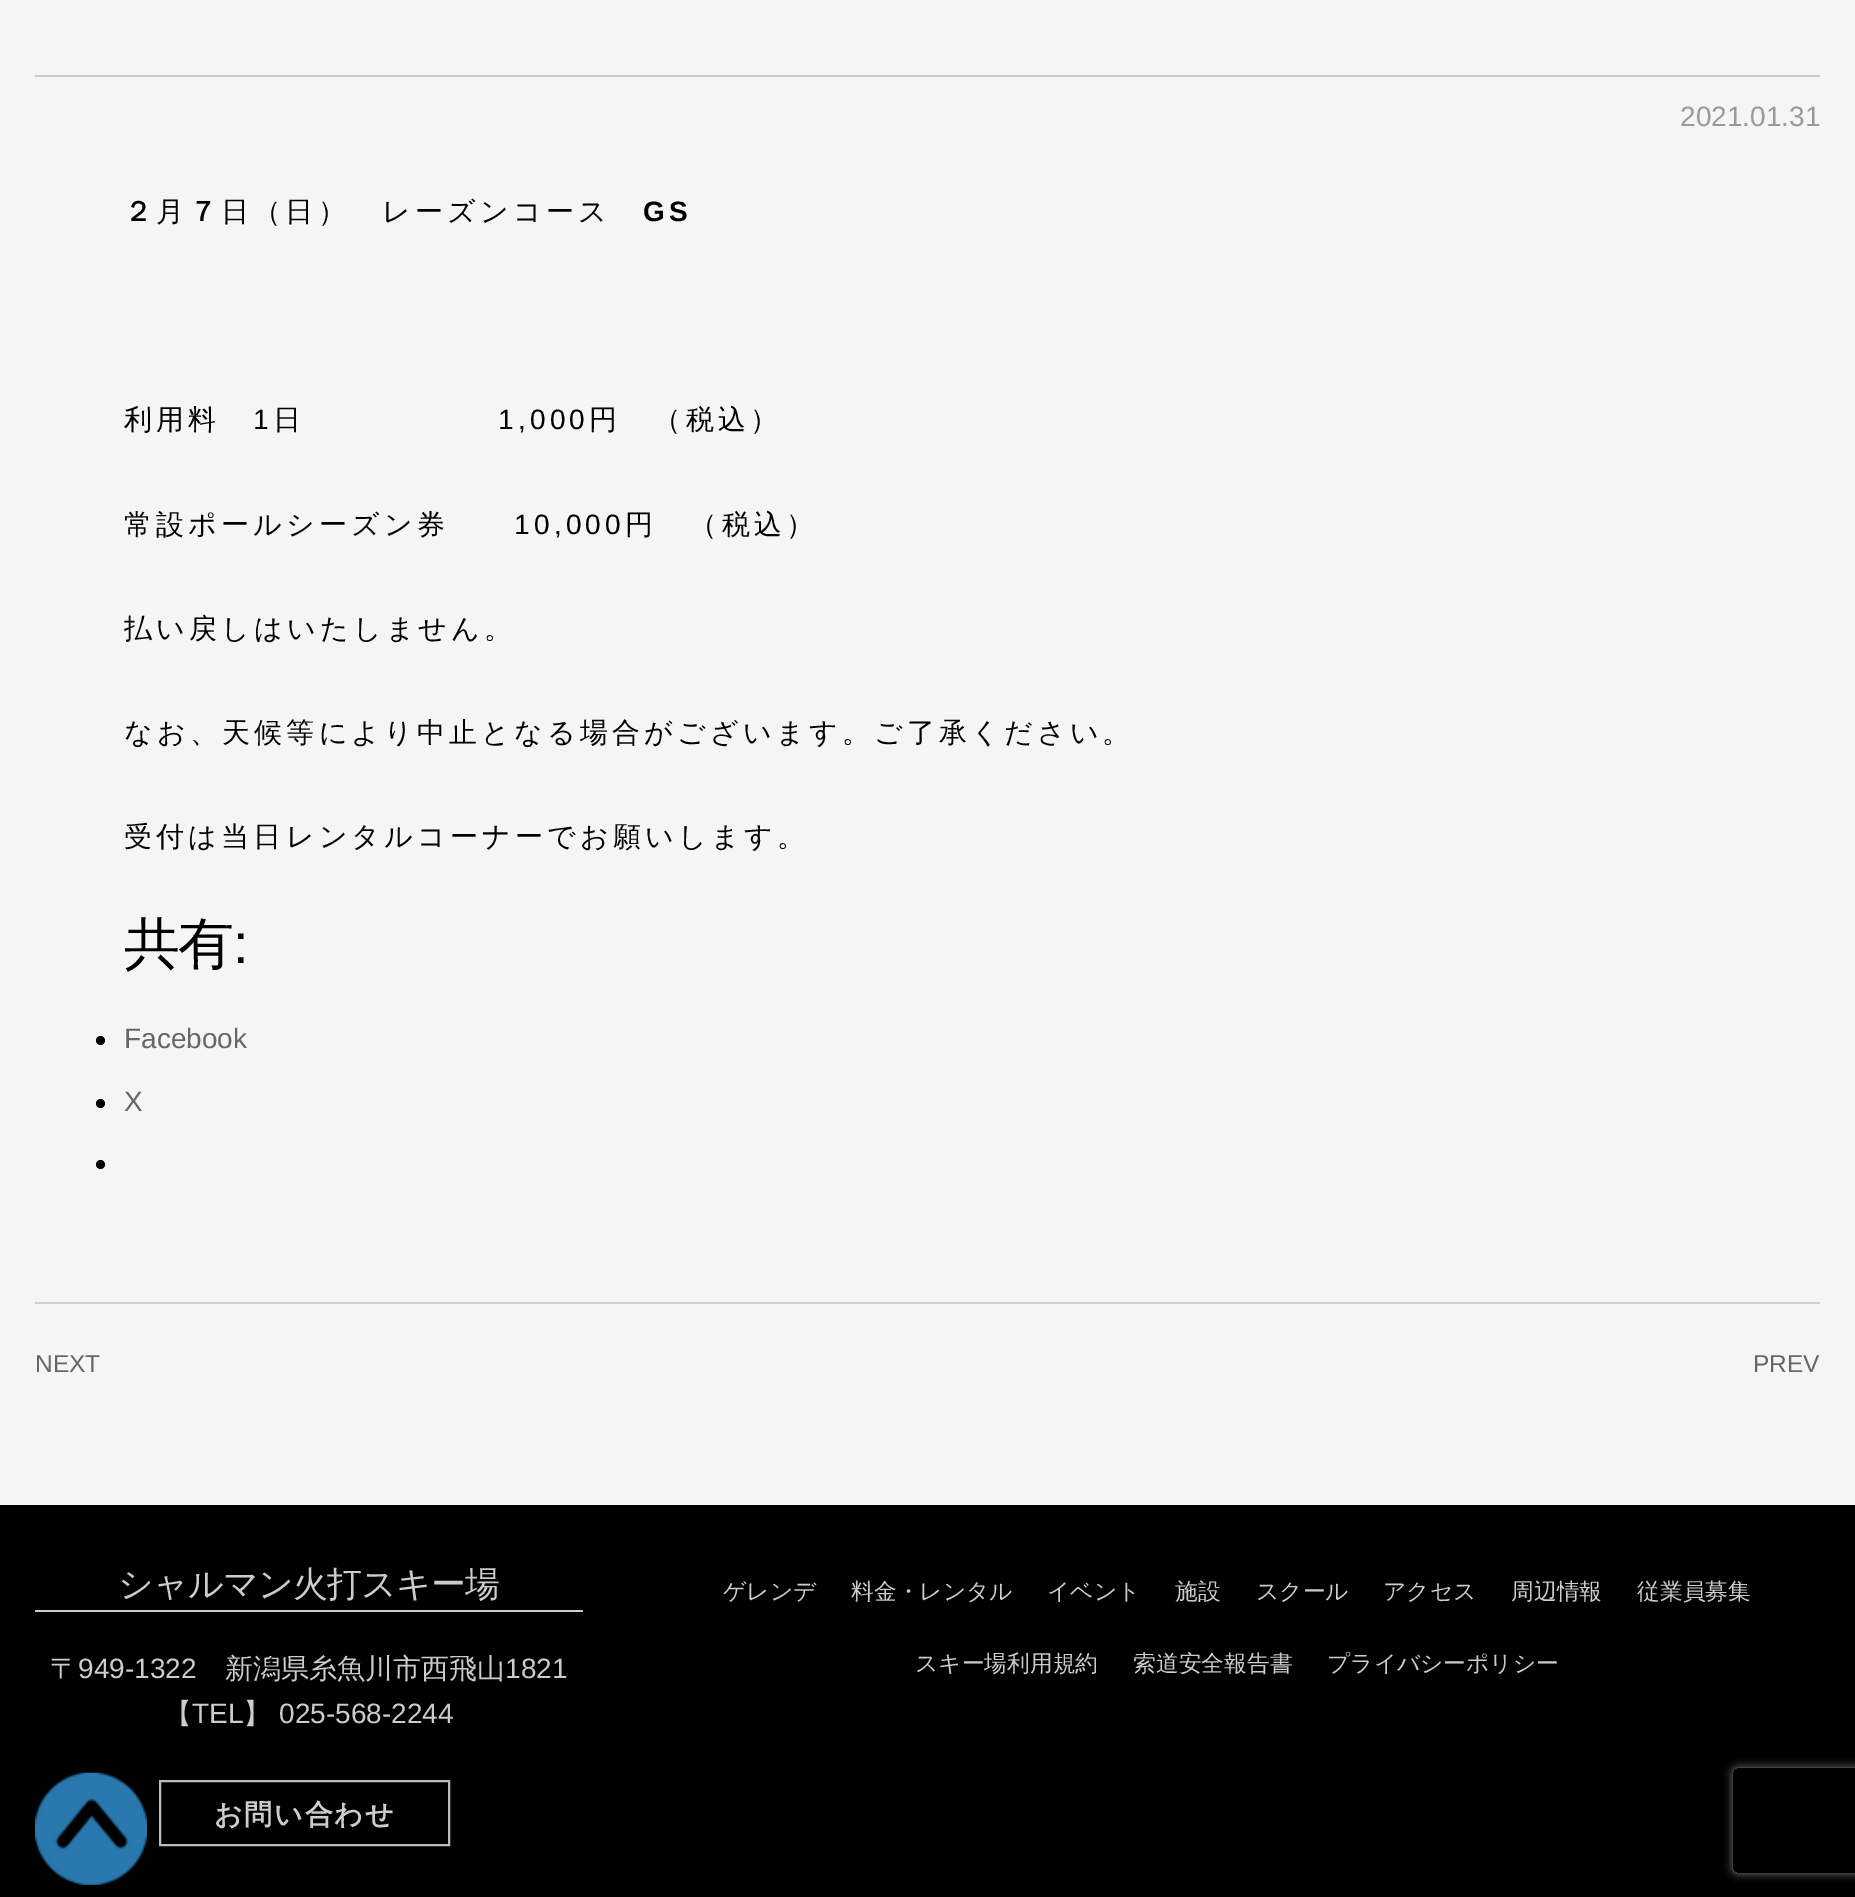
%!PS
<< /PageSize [1855 1897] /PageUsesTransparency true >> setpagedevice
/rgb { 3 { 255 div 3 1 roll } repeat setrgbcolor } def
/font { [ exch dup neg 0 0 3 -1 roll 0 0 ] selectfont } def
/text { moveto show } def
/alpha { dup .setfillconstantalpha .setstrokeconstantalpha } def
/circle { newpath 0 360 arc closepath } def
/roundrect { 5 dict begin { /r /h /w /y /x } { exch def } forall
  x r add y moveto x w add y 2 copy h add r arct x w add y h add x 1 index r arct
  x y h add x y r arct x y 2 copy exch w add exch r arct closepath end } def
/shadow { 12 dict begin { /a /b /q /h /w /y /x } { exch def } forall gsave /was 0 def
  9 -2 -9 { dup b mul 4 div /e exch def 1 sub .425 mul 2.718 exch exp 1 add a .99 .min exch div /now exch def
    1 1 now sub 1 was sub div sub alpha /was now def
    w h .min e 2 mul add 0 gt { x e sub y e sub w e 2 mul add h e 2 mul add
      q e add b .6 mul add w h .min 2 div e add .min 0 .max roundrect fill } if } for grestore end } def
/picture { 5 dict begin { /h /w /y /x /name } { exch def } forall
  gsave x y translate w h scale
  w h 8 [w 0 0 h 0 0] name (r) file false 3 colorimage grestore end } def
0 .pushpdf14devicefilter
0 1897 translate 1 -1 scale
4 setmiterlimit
245 245 245 rgb
0 0 1855 1897 rectfill
204 204 204 rgb
35 75 1785 2 rectfill
208 208 208 rgb
35 1302 1785 2 rectfill
0 0 0 rgb
100.5 1040.5 4.5 circle fill
100.5 1103.5 4.5 circle fill
100.5 1164.5 4.5 circle fill
0 1505 1855 392 rectfill
204 204 204 rgb
35 1610 548 2 rectfill
187 187 187 rgb
2 setlinewidth
160 1781 289 64 rectstroke
gsave
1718 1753 moveto 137 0 rlineto 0 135 rlineto -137 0 rlineto closepath 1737 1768 moveto 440 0 rlineto 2 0 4 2 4 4 rcurveto 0 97 rlineto 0 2 -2 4 -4 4 rcurveto -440 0 rlineto -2 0 -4 -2 -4 -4 rcurveto 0 -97 rlineto 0 -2 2 -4 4 -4 rcurveto closepath eoclip newpath
128 128 128 rgb
1733 1768 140 105 4 4.5 1 shadow
grestore
(img_01.rgb) 35 1772 112 113 picture
/LiberationSans-Regular 28 font
153 153 153 rgb
(2021.01.31) 1680 126 text
/WenQuanYiZenHei-Bold 28 font
0 0 0 rgb
124 221 moveto 4.2 0 (２) ashow
/WenQuanYiZenHei-Medium 28 font
156 221 moveto 4.2 0 (月) ashow
/WenQuanYiZenHei-Bold 28 font
189 221 moveto 4.2 0 (７) ashow
/WenQuanYiZenHei-Medium 28 font
221 221 moveto 4.2 0 (日（日）　レーズンコース) ashow
/LiberationSans-Bold 28 font
643 221 moveto 4.2 0 (GS) ashow
/WenQuanYiZenHei-Medium 28 font
124 429 moveto 4.2 0 (利用料) ashow
/LiberationSans-Regular 28 font
253 429 moveto 4.2 0 (1) ashow
/WenQuanYiZenHei-Medium 28 font
273 429 moveto 4.2 0 (日) ashow
/LiberationSans-Regular 28 font
498 429 moveto 4.2 0 (1,000) ashow
/WenQuanYiZenHei-Medium 28 font
589 429 moveto 4.2 0 (円　（税込）) ashow
124 534 moveto 4.2 0 (常設ポールシーズン券) ashow
/LiberationSans-Regular 28 font
514 534 moveto 4.2 0 (10,000) ashow
/WenQuanYiZenHei-Medium 28 font
625 534 moveto 4.2 0 (円　（税込）) ashow
124 638 moveto 4.2 0 (払い戻しはいたしません。) ashow
124 742 moveto 4.2 0 (なお、天候等により中止となる場合がございます。ご了承ください。) ashow
124 846 moveto 4.2 0 (受付は当日レンタルコーナーでお願いします。) ashow
/WenQuanYiZenHei-Medium 56 font
124 963 moveto -2 0 (共有) ashow
/LiberationSans-Regular 56 font
233 963 moveto -2 0 (:) ashow
/LiberationSans-Regular 28 font
102 102 102 rgb
(Facebook) 124 1048 text
(X) 124 1111 text
/LiberationSans-Regular 24.5 font
(NEXT) 35 1372 text
(PREV) 1753 1372 text
/WenQuanYiZenHei-Medium 35 font
204 204 204 rgb
118 1596 moveto -0.9 0 (シャルマン火打スキー場) ashow
/WenQuanYiZenHei-Medium 28 font
(〒) 50 1678 text
/LiberationSans-Regular 28 font
(949-1322) 78 1678 text
/WenQuanYiZenHei-Medium 28 font
(新潟県糸魚川市西飛山) 225 1678 text
/LiberationSans-Regular 28 font
(1821) 505 1678 text
/WenQuanYiZenHei-Medium 28 font
(【) 164 1723 text
/LiberationSans-Regular 28 font
(TEL) 192 1723 text
/WenQuanYiZenHei-Medium 28 font
(】) 243 1723 text
/LiberationSans-Regular 28 font
(025-568-2244) 279 1723 text
/WenQuanYiZenHei-Bold 28 font
214 1824 moveto 1.75 0 (お問い合わせ) ashow
/WenQuanYiZenHei-Medium 22.75 font
(ゲレンデ) 723 1599 text
(料金・レンタル) 851 1599 text
(イベント) 1047 1599 text
(施設) 1175 1599 text
(スクール) 1256 1599 text
(アクセス) 1383 1599 text
(周辺情報) 1511 1599 text
(従業員募集) 1637 1599 text
(スキー場利用規約) 915 1671 text
(索道安全報告書) 1133 1671 text
(プライバシーポリシー) 1327 1671 text
.poppdf14devicefilter showpage
